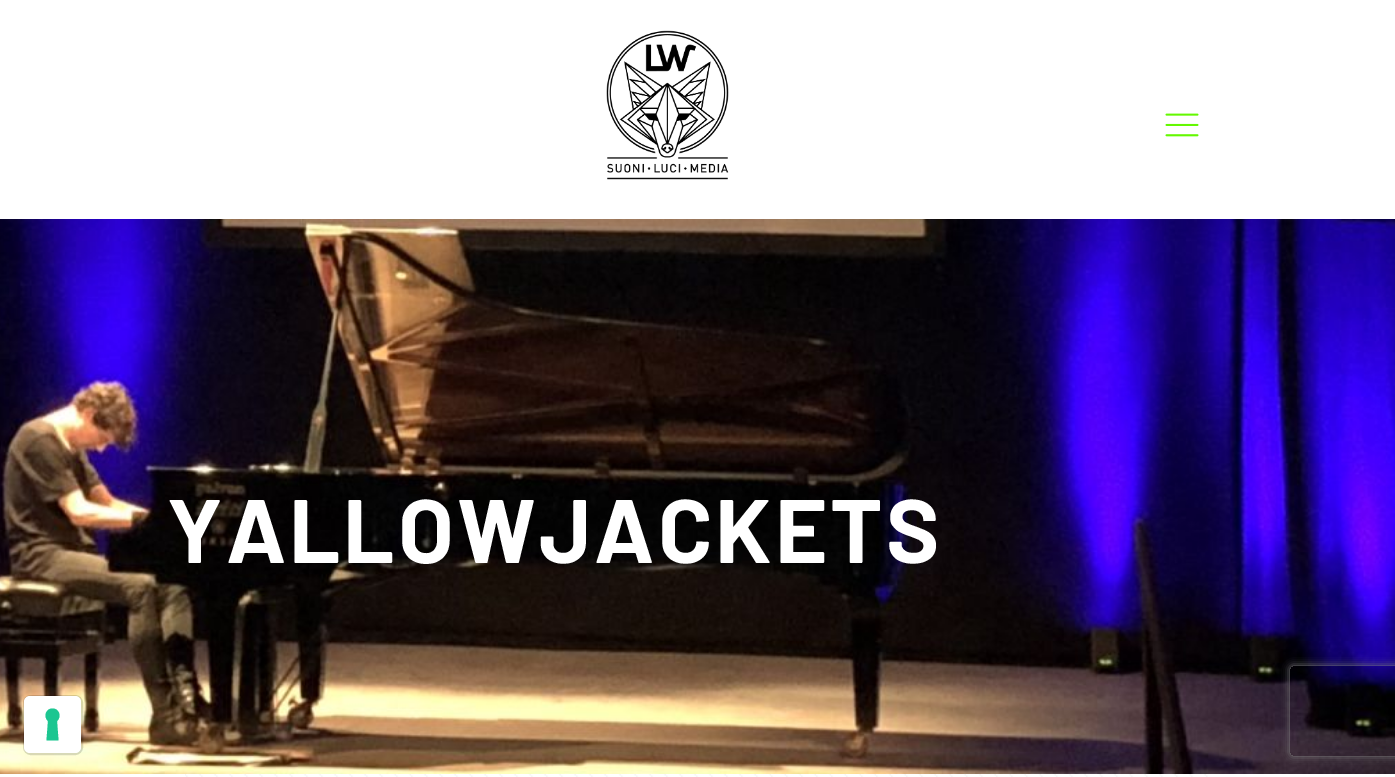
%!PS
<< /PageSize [1395 777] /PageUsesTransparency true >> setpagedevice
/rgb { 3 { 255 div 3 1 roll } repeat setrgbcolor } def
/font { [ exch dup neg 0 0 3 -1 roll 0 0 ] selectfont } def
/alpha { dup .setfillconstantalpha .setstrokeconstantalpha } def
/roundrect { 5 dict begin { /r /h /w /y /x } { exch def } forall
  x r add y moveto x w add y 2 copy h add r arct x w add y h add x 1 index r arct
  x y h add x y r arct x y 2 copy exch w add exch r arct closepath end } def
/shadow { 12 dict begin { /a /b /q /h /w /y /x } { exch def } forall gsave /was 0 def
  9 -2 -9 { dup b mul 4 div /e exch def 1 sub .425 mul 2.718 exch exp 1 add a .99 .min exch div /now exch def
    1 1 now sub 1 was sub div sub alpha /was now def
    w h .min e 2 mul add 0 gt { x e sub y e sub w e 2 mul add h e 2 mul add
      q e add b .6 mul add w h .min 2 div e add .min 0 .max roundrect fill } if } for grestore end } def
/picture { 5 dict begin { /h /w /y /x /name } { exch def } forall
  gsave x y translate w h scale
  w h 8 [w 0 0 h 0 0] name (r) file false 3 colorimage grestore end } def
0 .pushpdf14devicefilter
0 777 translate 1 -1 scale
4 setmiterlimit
255 255 255 rgb
0 0 1395 777 rectfill
(img_01.rgb) 606 30 123 150 picture
(img_02.rgb) 1165 113 34 24 picture
(img_03.rgb) 0 219 1395 555 picture
(img_04.rgb) 185 774 1023 3 picture
0.15 alpha
0 0 0 rgb
2 setlinewidth
24 696 58 58 7 roundrect stroke
1 alpha
255 255 255 rgb
24 696 57 57 6 roundrect fill
28 198 145 rgb
52.5 708.5 moveto 6.5 0 9.5 8 4.5 12.5 rcurveto 1.5 19.5 rlineto -12 0 rlineto 1.5 -19.5 rlineto -5 -4.5 -2 -12.5 4.5 -12.5 rcurveto closepath eofill
gsave
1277 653 moveto 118 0 rlineto 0 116 rlineto -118 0 rlineto closepath 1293 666 moveto 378 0 rlineto 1.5 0 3 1.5 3 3 rcurveto 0 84 rlineto 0 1.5 -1.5 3 -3 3 rcurveto -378 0 rlineto -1.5 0 -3 -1.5 -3 -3 rcurveto 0 -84 rlineto 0 -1.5 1.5 -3 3 -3 rcurveto closepath eoclip newpath
128 128 128 rgb
1290 666 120 90 3 4 1 shadow
grestore
/Barlow-Bold 90 font
255 255 255 rgb
167 563 moveto 3 0 (YALLOWJACKETS) ashow
.poppdf14devicefilter showpage
